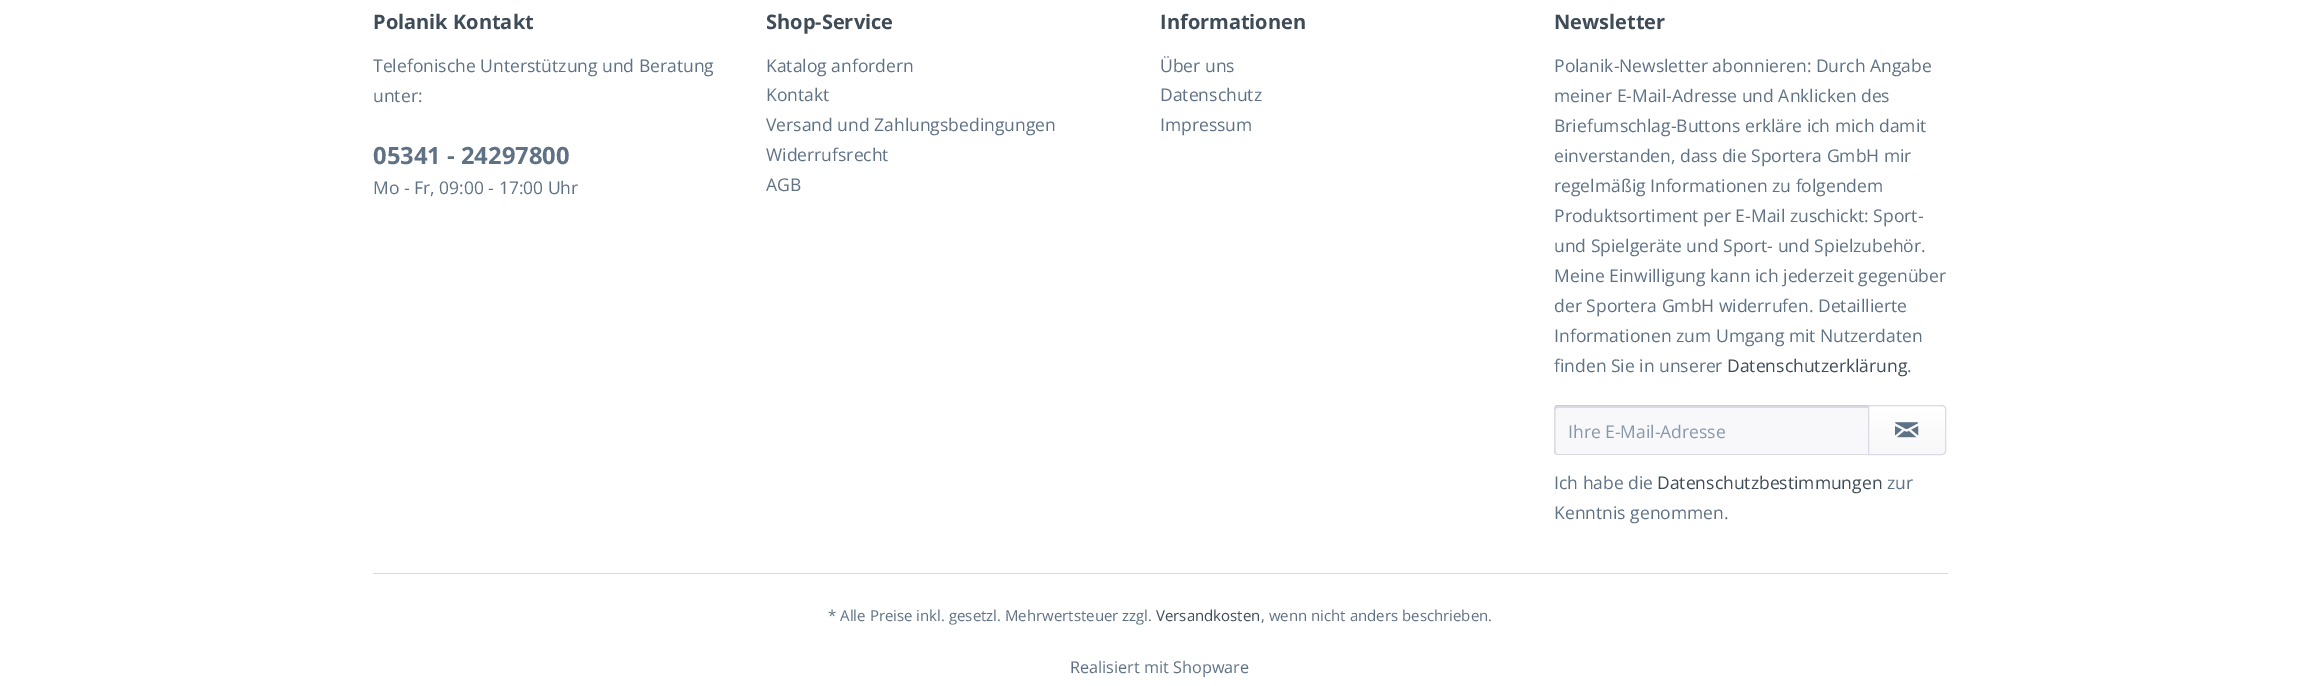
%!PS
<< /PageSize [2320 686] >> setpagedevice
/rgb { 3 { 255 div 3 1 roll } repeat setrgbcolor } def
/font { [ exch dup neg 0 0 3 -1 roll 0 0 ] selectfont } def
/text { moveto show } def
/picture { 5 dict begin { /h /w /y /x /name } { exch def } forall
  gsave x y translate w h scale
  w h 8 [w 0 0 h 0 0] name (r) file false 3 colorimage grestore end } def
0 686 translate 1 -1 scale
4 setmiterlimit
255 255 255 rgb
0 0 2320 686 rectfill
218 218 229 rgb
373 573 1575 1 rectfill
248 248 250 rgb
1557.5 406 moveto 310.5 0 rlineto 0 48 rlineto -310.5 0 rlineto -1.5 0 -2.5 -1 -2.5 -2.5 rcurveto 0 -43 rlineto 0 -1.5 1 -2.5 2.5 -2.5 rcurveto closepath fill
218 218 229 rgb
1558 408 moveto 310 0 rlineto 0 -2 rlineto -310 0 rlineto -2 0 -3 1 -3 2 rcurveto 0 2 rlineto 0 -1 1 -2 3 -2 rcurveto closepath fill
203 203 219 rgb
1558 405 moveto -1 0 -2 0 -3 1 rcurveto 1 1 rlineto 2 -1 rlineto 310 0 rlineto 1 -1 rlineto closepath fill
218 218 229 rgb
1869 455 moveto -1 -1 rlineto -310 0 rlineto -2 -1 rlineto -1 1 rlineto 1 1 2 1 3 1 rcurveto closepath fill
1555 406 moveto -1 1 -1 2 -1 3 rcurveto 0 42 rlineto 0 1 0 2 1 3 rcurveto 1 -1 rlineto -1 -1 -1 -45 0 -46 rcurveto closepath fill
gsave 1869 406 moveto 73.5 0 rlineto 1.5 0 2.5 1 2.5 2.5 rcurveto 0 43 rlineto 0 1.5 -1 2.5 -2.5 2.5 rcurveto -73.5 0 rlineto closepath clip newpath
<< /ShadingType 2 /ColorSpace /DeviceRGB /Coords [1907 406 1907 454] /Extend [true true] /Function << /FunctionType 2 /Domain [0 1] /C0 [1 1 1] /C1 [0.973 0.973 0.98] /N 1 >> >> shfill grestore
1868.5 405.5 moveto 73.5 0 rlineto 2 0 3.5 1.5 3.5 3.5 rcurveto 0 42 rlineto 0 2 -1.5 3.5 -3.5 3.5 rcurveto -73.5 0 rlineto closepath stroke
(img_01.rgb) 1895 422 24 16 picture
/OpenSans-Bold 20 font
63 76 88 rgb
(Polanik Kontakt) 373 29 text
/OpenSans-Regular 17.5 font
95 114 133 rgb
(Telefonische Unterstützung und Beratung) 373 72 text
(unter:) 373 102 text
/OpenSans-Bold 23.75 font
(05341 - 24297800) 373 164 text
/OpenSans-Regular 17.5 font
(Mo - Fr, 09:00 - 17:00 Uhr) 373 194 text
/OpenSans-Bold 20 font
63 76 88 rgb
(Shop-Service) 766 29 text
/OpenSans-Regular 17.5 font
95 114 133 rgb
(Katalog anfordern) 766 72 text
(Kontakt) 766 101 text
(Versand und Zahlungsbedingungen) 766 131 text
(Widerrufsrecht) 766 161 text
(AGB) 766 191 text
/OpenSans-Bold 20 font
63 76 88 rgb
(Informationen) 1160 29 text
/OpenSans-Regular 17.5 font
95 114 133 rgb
(Über uns) 1160 72 text
(Datenschutz) 1160 101 text
(Impressum) 1160 131 text
/OpenSans-Bold 20 font
63 76 88 rgb
(Newsletter) 1554 29 text
/OpenSans-Regular 17.5 font
95 114 133 rgb
(Polanik-Newsletter abonnieren: Durch Angabe) 1554 72 text
(meiner E-Mail-Adresse und Anklicken des) 1554 102 text
(Briefumschlag-Buttons erkläre ich mich damit) 1554 132 text
(einverstanden, dass die Sportera GmbH mir) 1554 162 text
(regelmäßig Informationen zu folgendem) 1554 192 text
(Produktsortiment per E-Mail zuschickt: Sport-) 1554 222 text
(und Spielgeräte und Sport- und Spielzubehör.) 1554 252 text
(Meine Einwilligung kann ich jederzeit gegenüber) 1554 282 text
(der Sportera GmbH widerrufen. Detaillierte) 1554 312 text
(Informationen zum Umgang mit Nutzerdaten) 1554 342 text
(finden Sie in unserer) 1554 372 text
63 76 88 rgb
(Datenschutzerklärung) 1727 372 text
95 114 133 rgb
(.) 1907 372 text
135 152 169 rgb
(Ihre E-Mail-Adresse) 1568 438 text
95 114 133 rgb
(Ich habe die) 1554 489 text
63 76 88 rgb
(Datenschutzbestimmungen) 1657 489 text
95 114 133 rgb
(zur) 1887 489 text
(Kenntnis genommen.) 1554 519 text
/OpenSans-Regular 15 font
(* Alle Preise inkl. gesetzl. Mehrwertsteuer zzgl.) 828 621 text
63 76 88 rgb
(Versandkosten) 1156 621 text
95 114 133 rgb
(, wenn nicht anders beschrieben.) 1261 621 text
/OpenSans-Regular 16.25 font
(Realisiert mit Shopware) 1070 673 text
showpage
